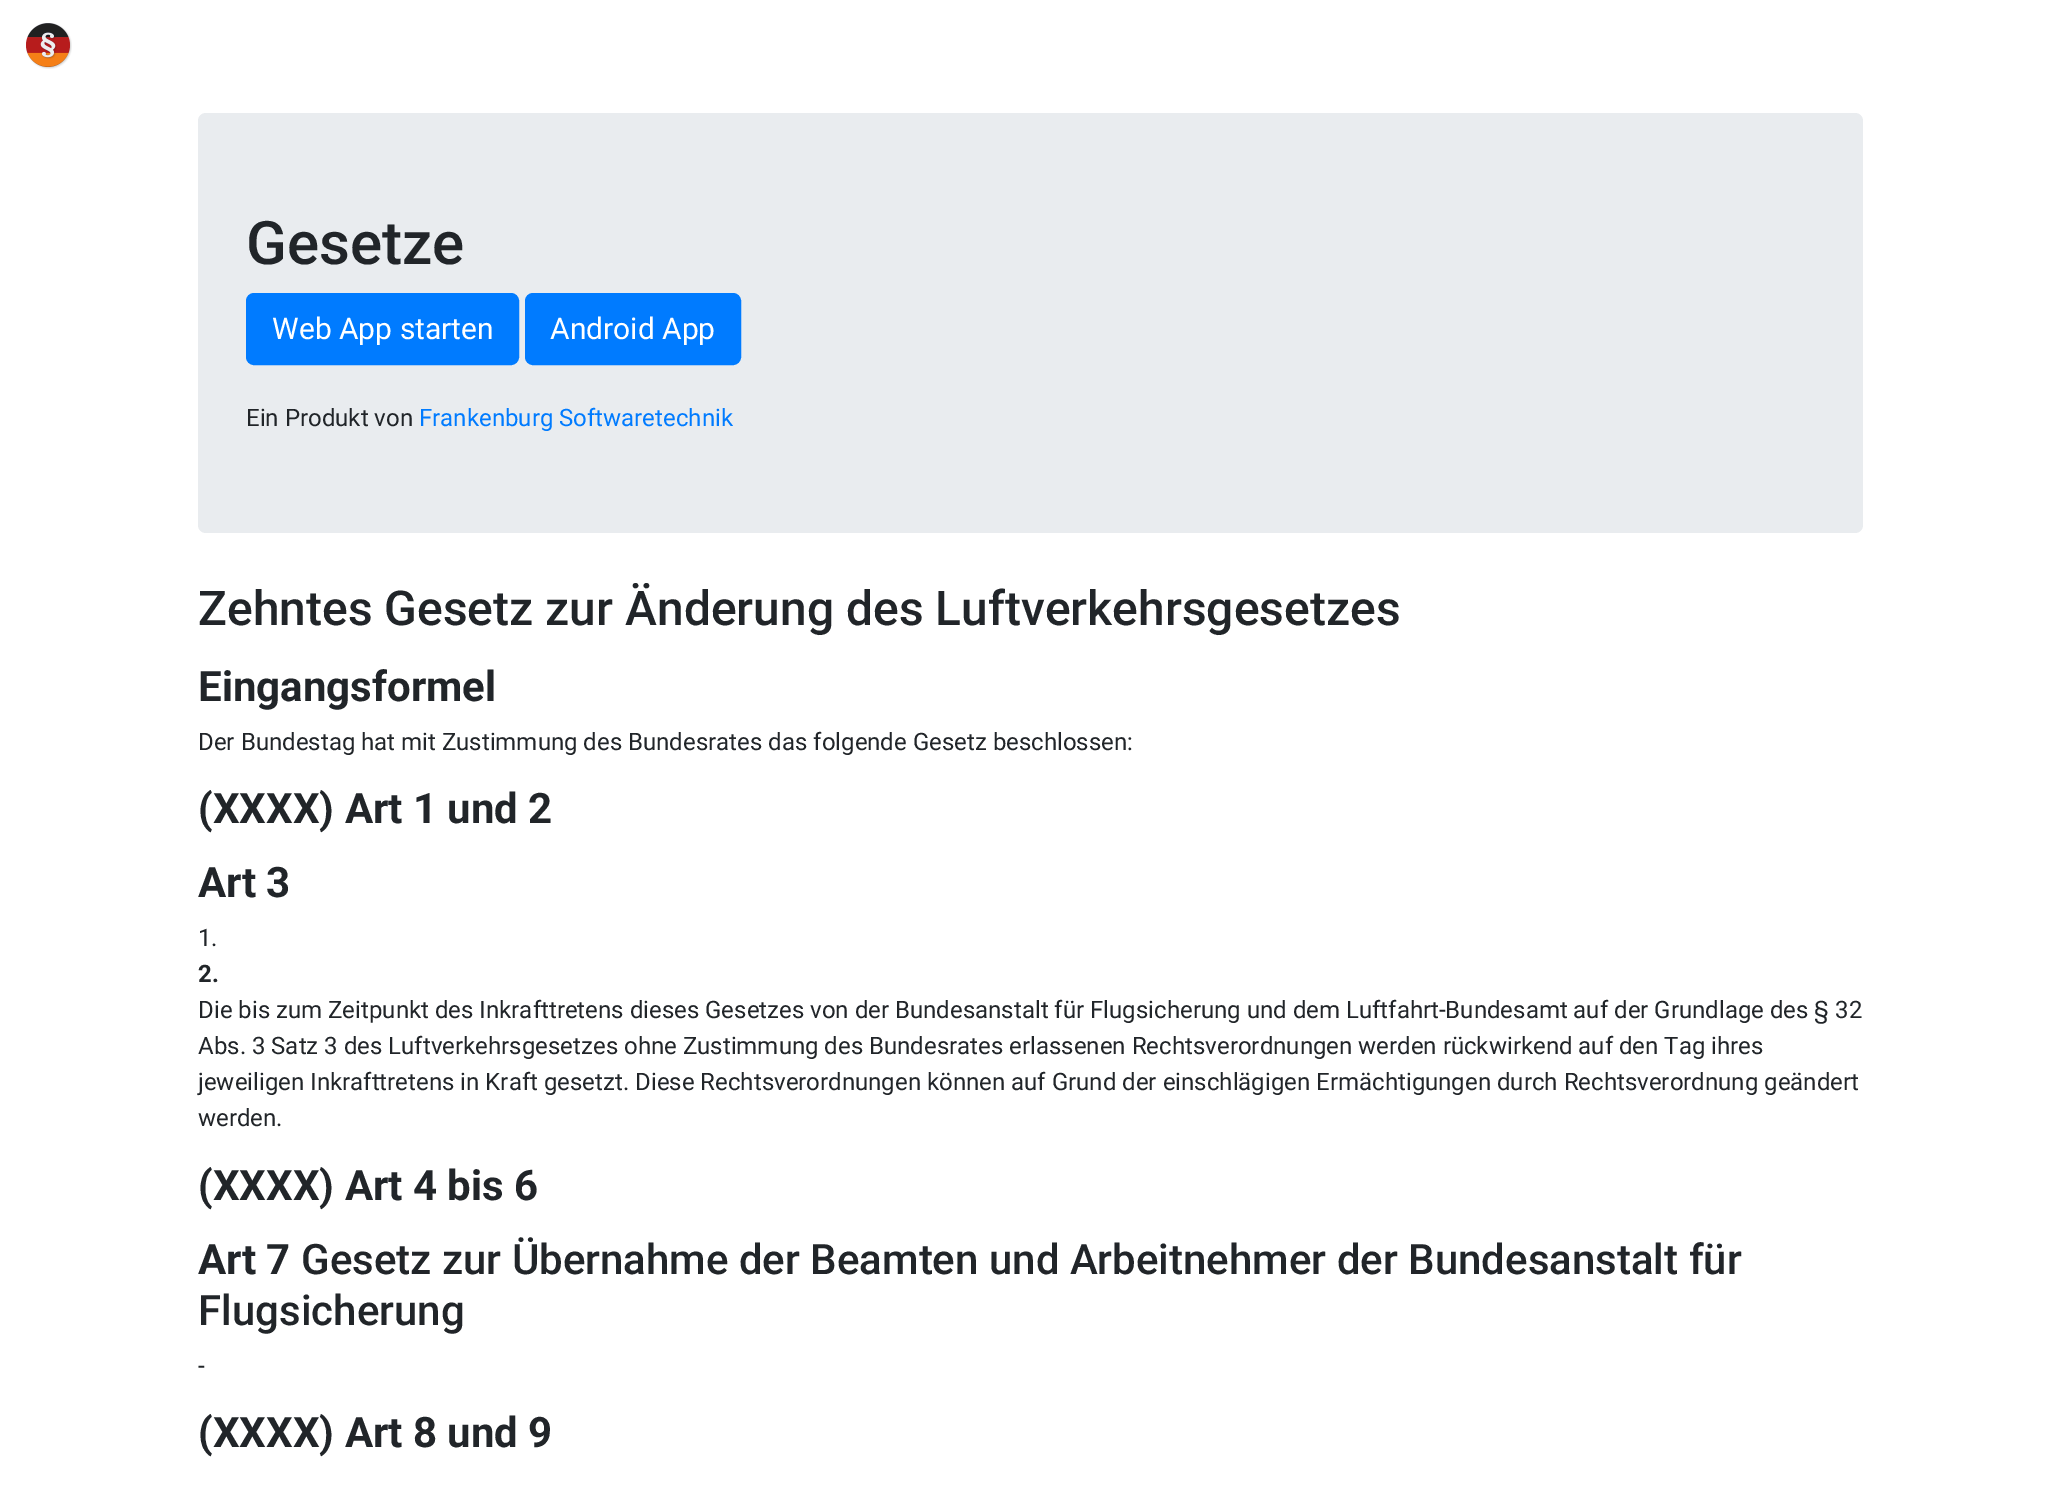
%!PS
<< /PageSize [2061 1488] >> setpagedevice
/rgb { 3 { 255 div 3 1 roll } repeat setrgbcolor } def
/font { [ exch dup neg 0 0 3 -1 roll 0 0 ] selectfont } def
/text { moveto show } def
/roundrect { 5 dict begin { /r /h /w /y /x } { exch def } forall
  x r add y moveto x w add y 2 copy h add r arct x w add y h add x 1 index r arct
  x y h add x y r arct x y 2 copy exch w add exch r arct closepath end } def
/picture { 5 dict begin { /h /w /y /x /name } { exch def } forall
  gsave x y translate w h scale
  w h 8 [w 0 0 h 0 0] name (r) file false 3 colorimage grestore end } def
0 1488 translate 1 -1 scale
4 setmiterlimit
255 255 255 rgb
0 0 2061 1488 rectfill
(img_01.rgb) 26 23 46 46 picture
233 236 239 rgb
198 113 1665 420 8 roundrect fill
0 123 255 rgb
247 294 271 70 7 roundrect gsave fill grestore
2 setlinewidth
stroke
526 294 214 70 7 roundrect gsave fill grestore
stroke
/Roboto-Medium 60 font
33 37 41 rgb
(Gesetze) 246 264 text
/Roboto-Regular 30 font
255 255 255 rgb
(Web App starten) 272 339 text
(Android App) 550 339 text
/Roboto-Regular 24 font
33 37 41 rgb
(Ein Produkt von) 246 426 text
0 123 255 rgb
(Frankenburg Softwaretechnik) 419 426 text
/Roboto-Medium 48 font
33 37 41 rgb
(Zehntes Gesetz zur Änderung des Luftverkehrsgesetzes) 198 625 text
/Roboto-Bold 42 font
(Eingangsformel) 198 701 text
/Roboto-Regular 24 font
(Der Bundestag hat mit Zustimmung des Bundesrates das folgende Gesetz beschlossen:) 198 750 text
/Roboto-Bold 42 font
(\(XXXX\) Art 1 und 2) 198 823 text
(Art 3) 198 897 text
/Roboto-Regular 24 font
(1.) 198 946 text
/Roboto-Bold 24 font
(2.) 198 982 text
/Roboto-Regular 24 font
(Die bis zum Zeitpunkt des Inkrafttretens dieses Gesetzes von der Bundesanstalt für Flugsicherung und dem Luftfahrt-Bundesamt auf der Grundlage des § 32) 198 1018 text
(Abs. 3 Satz 3 des Luftverkehrsgesetzes ohne Zustimmung des Bundesrates erlassenen Rechtsverordnungen werden rückwirkend auf den Tag ihres) 198 1054 text
(jeweiligen Inkrafttretens in Kraft gesetzt. Diese Rechtsverordnungen können auf Grund der einschlägigen Ermächtigungen durch Rechtsverordnung geändert) 198 1090 text
(werden.) 198 1126 text
/Roboto-Bold 42 font
(\(XXXX\) Art 4 bis 6) 198 1200 text
(Art 7) 198 1274 text
/Roboto-Medium 42 font
(Gesetz zur Übernahme der Beamten und Arbeitnehmer der Bundesanstalt für) 301 1274 text
(Flugsicherung) 198 1325 text
/Roboto-Regular 24 font
(-) 198 1374 text
/Roboto-Bold 42 font
(\(XXXX\) Art 8 und 9) 198 1447 text
showpage
